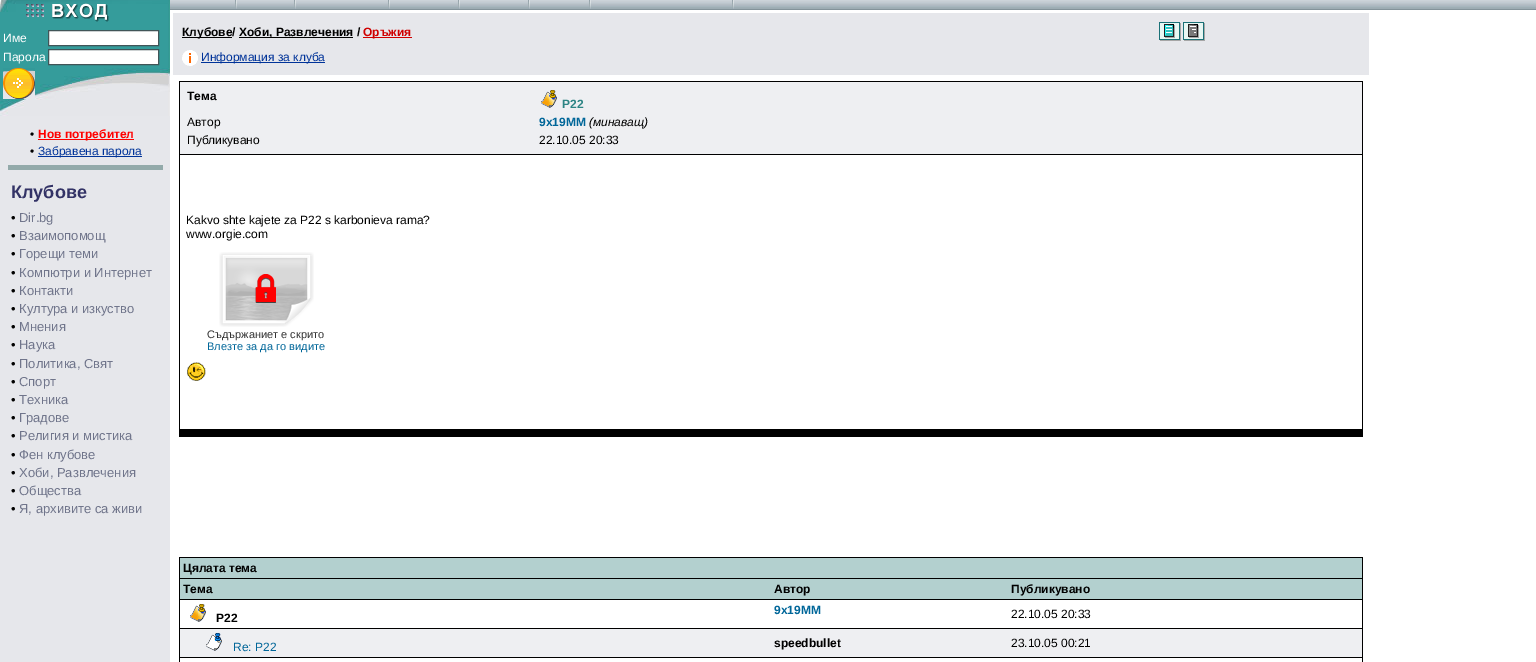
%!PS
<< /PageSize [1536 662] >> setpagedevice
/rgb { 3 { 255 div 3 1 roll } repeat setrgbcolor } def
/font { [ exch dup neg 0 0 3 -1 roll 0 0 ] selectfont } def
/text { moveto show } def
/picture { 5 dict begin { /h /w /y /x /name } { exch def } forall
  gsave x y translate w h scale
  w h 8 [w 0 0 h 0 0] name (r) file false 3 colorimage grestore end } def
0 662 translate 1 -1 scale
4 setmiterlimit
255 255 255 rgb
0 0 1536 662 rectfill
230 231 235 rgb
0 116 170 546 rectfill
(img_01.rgb) 0 0 170 116 picture
(img_02.rgb) 26 3 83 19 picture
255 255 255 rgb
48.5 30.5 moveto 110 0 rlineto 0 15 rlineto -110 0 rlineto closepath gsave fill grestore
65 85 88 rgb
stroke
255 255 255 rgb
48.5 49.5 moveto 110 0 rlineto 0 15 rlineto -110 0 rlineto closepath gsave fill grestore
65 85 88 rgb
stroke
(img_03.rgb) 3 68 32 31 picture
255 0 0 rgb
38 139 96 1 rectfill
0 51 153 rgb
38 156 104 1 rectfill
147 170 170 rgb
8 165 155 5 rectfill
(img_04.rgb) 170 0 1366 10 picture
(img_05.rgb) 235 0 2 9 picture
(img_05.rgb) 294 0 2 9 picture
(img_05.rgb) 388 0 2 9 picture
(img_05.rgb) 458 0 2 9 picture
(img_05.rgb) 528 0 2 9 picture
(img_05.rgb) 589 0 2 9 picture
(img_05.rgb) 732 0 2 9 picture
230 231 235 rgb
173 13 1196 62 rectfill
0 0 0 rgb
182 37 50 1 rectfill
239 37 114 1 rectfill
208 0 0 rgb
363 37 49 1 rectfill
(img_06.rgb) 1159 22 22 19 picture
(img_07.rgb) 1183 22 22 19 picture
(img_08.rgb) 182 50 16 16 picture
0 51 153 rgb
201 62 124 1 rectfill
0 0 0 rgb
179 81 1184 356 rectfill
238 239 242 rgb
180 82 1182 72 rectfill
(img_09.rgb) 541 90 16 18 picture
255 255 255 rgb
180 155 1182 274 rectfill
(img_10.rgb) 219 252 95 75 picture
(img_11.rgb) 187 362 19 19 picture
0 0 0 rgb
179 557 1184 105 rectfill
179 208 207 rgb
180 558 1182 20 rectfill
180 579 1182 20 rectfill
255 255 255 rgb
180 600 1182 28 rectfill
(img_12.rgb) 190 604 16 18 picture
238 239 242 rgb
180 629 1182 28 rectfill
(img_13.rgb) 206 633 16 18 picture
255 255 255 rgb
180 658 1182 4 rectfill
/LiberationSans-Regular 12 font
(Име) 3 42 text
(Парола) 3 61 text
0 0 0 rgb
(•) 30 138 text
/LiberationSans-Bold 12 font
255 0 0 rgb
(Нов потребител) 38 138 text
/LiberationSans-Regular 12 font
0 0 0 rgb
(•) 30 155 text
0 51 153 rgb
(Забравена парола) 38 155 text
/LiberationSans-Bold 18 font
51 51 102 rgb
(Клубове) 11 198 text
/LiberationSans-Regular 13 font
0 0 0 rgb
(•) 11 222 text
112 117 139 rgb
(Dir.bg) 19 222 text
0 0 0 rgb
(•) 11 240 text
112 117 139 rgb
(Взаимопомощ) 19 240 text
0 0 0 rgb
(•) 11 258 text
112 117 139 rgb
(Горещи теми) 19 258 text
0 0 0 rgb
(•) 11 277 text
112 117 139 rgb
(Компютри и Интернет) 19 277 text
0 0 0 rgb
(•) 11 295 text
112 117 139 rgb
(Контакти) 19 295 text
0 0 0 rgb
(•) 11 313 text
112 117 139 rgb
(Култура и изкуство) 19 313 text
0 0 0 rgb
(•) 11 331 text
112 117 139 rgb
(Мнения) 19 331 text
0 0 0 rgb
(•) 11 349 text
112 117 139 rgb
(Наука) 19 349 text
0 0 0 rgb
(•) 11 368 text
112 117 139 rgb
(Политика, Свят) 19 368 text
0 0 0 rgb
(•) 11 386 text
112 117 139 rgb
(Спорт) 19 386 text
0 0 0 rgb
(•) 11 404 text
112 117 139 rgb
(Техника) 19 404 text
0 0 0 rgb
(•) 11 422 text
112 117 139 rgb
(Градове) 19 422 text
0 0 0 rgb
(•) 11 440 text
112 117 139 rgb
(Религия и мистика) 19 440 text
0 0 0 rgb
(•) 11 459 text
112 117 139 rgb
(Фен клубове) 19 459 text
0 0 0 rgb
(•) 11 477 text
112 117 139 rgb
(Хоби, Развлечения) 19 477 text
0 0 0 rgb
(•) 11 495 text
112 117 139 rgb
(Общества) 19 495 text
0 0 0 rgb
(•) 11 513 text
112 117 139 rgb
(Я, архивите са живи) 19 513 text
/LiberationSans-Bold 12 font
0 0 0 rgb
(Клубове/) 182 36 text
(Хоби, Развлечения /) 239 36 text
208 0 0 rgb
(Оръжия) 363 36 text
/LiberationSans-Regular 12 font
0 51 153 rgb
(Информация за клуба) 201 61 text
/LiberationSans-Bold 12 font
0 0 0 rgb
(Тема) 187 100 text
44 132 132 rgb
(P22) 562 108 text
/LiberationSans-Regular 12 font
0 0 0 rgb
(Автор) 187 126 text
/LiberationSans-Bold 12 font
0 102 153 rgb
(9x19MM) 539 126 text
/LiberationSans-Italic 12 font
0 0 0 rgb
(\(минаващ\)) 589 126 text
/LiberationSans-Regular 12 font
(Публикувано) 187 144 text
(22.10.05 20:33) 539 144 text
(Kakvo shte kajete za P22 s karbonieva rama?) 186 224 text
(www.orgie.com) 186 238 text
/LiberationSans-Regular 11 font
51 51 51 rgb
(Съдържаниет е скрито) 207 338 text
0 102 153 rgb
(Влезте за да го видите) 207 350 text
/LiberationSans-Bold 12 font
0 0 0 rgb
(Цялата тема) 183 572 text
(Тема) 183 593 text
(Автор) 774 593 text
(Публикувано) 1011 593 text
(P22) 216 622 text
0 102 153 rgb
(9x19MM) 774 614 text
/LiberationSans-Regular 12 font
0 0 0 rgb
(22.10.05 20:33) 1011 618 text
0 102 153 rgb
(Re: P22) 233 651 text
/LiberationSans-Bold 12 font
0 0 0 rgb
(speedbullet) 774 647 text
/LiberationSans-Regular 12 font
(23.10.05 00:21) 1011 647 text
showpage
